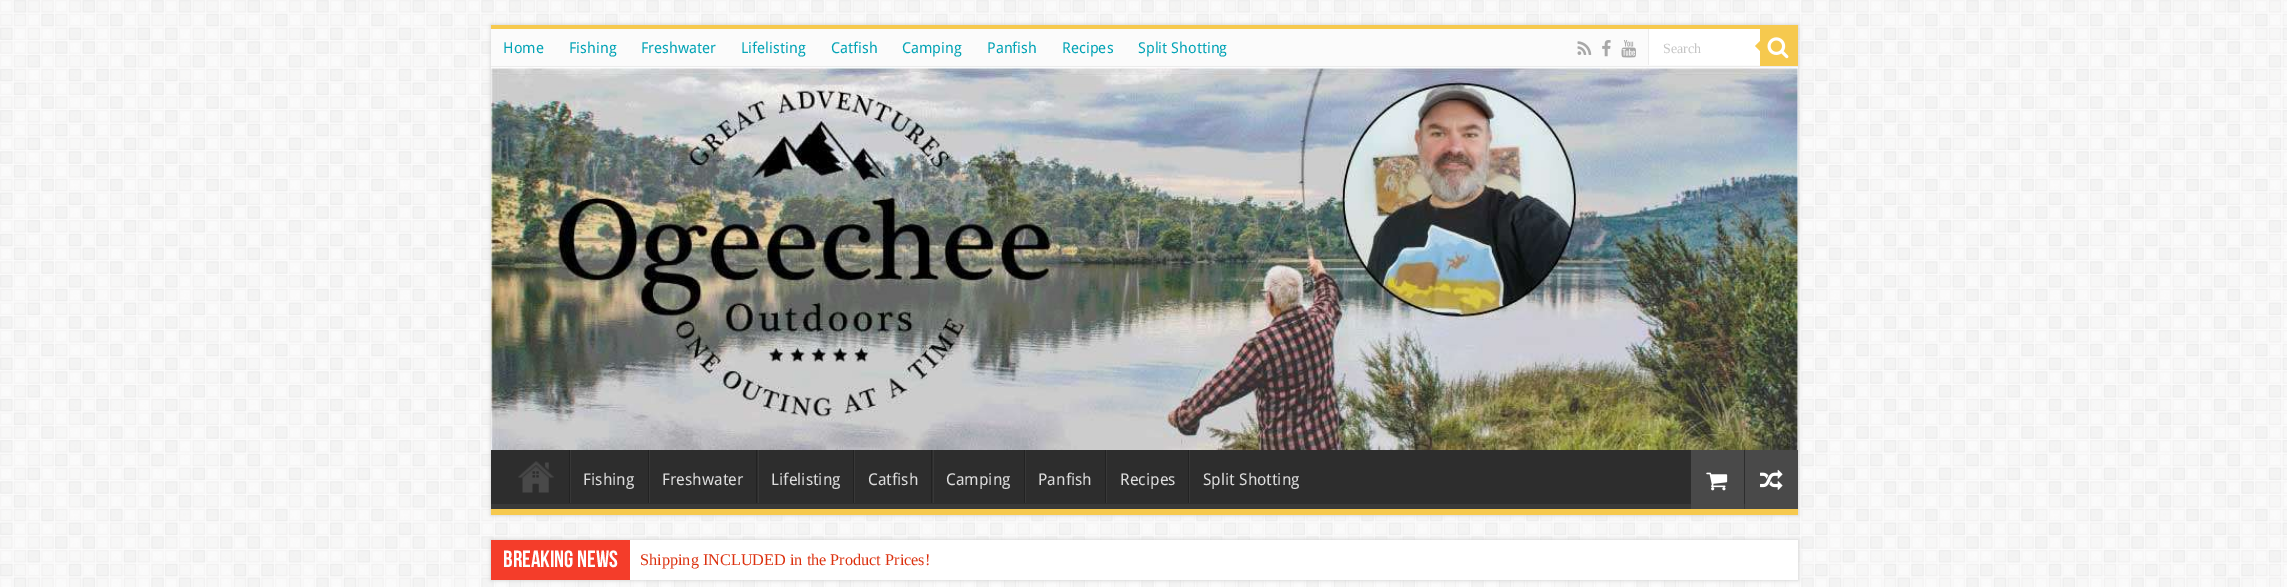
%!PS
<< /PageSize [2287 587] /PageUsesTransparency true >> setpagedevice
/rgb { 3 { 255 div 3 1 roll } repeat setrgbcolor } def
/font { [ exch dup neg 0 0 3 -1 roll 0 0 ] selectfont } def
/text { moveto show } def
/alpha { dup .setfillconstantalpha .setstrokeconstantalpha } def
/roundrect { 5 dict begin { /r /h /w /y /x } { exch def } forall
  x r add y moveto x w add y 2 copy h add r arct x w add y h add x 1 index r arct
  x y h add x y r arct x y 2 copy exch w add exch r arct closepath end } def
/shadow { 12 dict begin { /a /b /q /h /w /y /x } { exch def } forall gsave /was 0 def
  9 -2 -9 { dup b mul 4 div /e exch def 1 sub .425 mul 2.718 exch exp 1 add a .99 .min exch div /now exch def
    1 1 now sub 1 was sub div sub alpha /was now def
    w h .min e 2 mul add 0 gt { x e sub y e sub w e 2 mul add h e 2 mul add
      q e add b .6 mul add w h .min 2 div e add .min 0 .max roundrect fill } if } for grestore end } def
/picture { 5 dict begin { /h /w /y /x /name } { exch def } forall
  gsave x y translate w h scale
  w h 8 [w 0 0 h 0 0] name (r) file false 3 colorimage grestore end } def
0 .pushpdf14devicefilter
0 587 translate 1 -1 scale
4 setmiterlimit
255 255 255 rgb
0 0 2287 587 rectfill
(img_01.rgb) 0 0 2287 587 picture
202 202 202 rgb
491 25 1307 490 0 2 1 shadow
255 255 255 rgb
491 68 1307 382 rectfill
246 201 78 rgb
491 25 1307 4 rectfill
251 251 251 rgb
491 29 1307 39 rectfill
236 236 236 rgb
491 66 1307 1 rectfill
(img_02.rgb) 1577 41 15 14 picture
(img_03.rgb) 1602 40 9 17 picture
(img_04.rgb) 1621 40 15 18 picture
255 255 255 rgb
1649 29 111 36 rectfill
236 236 236 rgb
1648 29 1 36 rectfill
246 201 78 rgb
1760 29 38 37 rectfill
(img_05.rgb) 1767 37 22 22 picture
1760 41 moveto 0 10 rlineto -5 -5 rlineto closepath fill
(img_06.rgb) 491 67 1307 383 picture
45 45 45 rgb
491 450 1254 54 rectfill
gsave
491 450 1307 59 rectclip
57 57 57 rgb
368 326 moveto 1553 0 rlineto 0 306 rlineto -1553 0 rlineto closepath 490 442 moveto 1306 0 rlineto 1 0 2 1 2 2 rcurveto 0 58 rlineto 0 1 -1 2 -2 2 rcurveto -1306 0 rlineto -1 0 -1 -1 -1 -2 rcurveto 0 -58 rlineto 0 -1 0 -2 1 -2 rcurveto closepath eofill
grestore
246 201 78 rgb
491 509 1307 6 rectfill
(img_07.rgb) 518 461 36 32 picture
34 34 34 rgb
569 450 1 53 rectfill
56 56 56 rgb
570 450 1 53 rectfill
34 34 34 rgb
648 450 1 53 rectfill
56 56 56 rgb
649 450 1 53 rectfill
34 34 34 rgb
756 450 1 53 rectfill
56 56 56 rgb
758 450 1 53 rectfill
34 34 34 rgb
853 450 1 53 rectfill
56 56 56 rgb
854 450 1 53 rectfill
34 34 34 rgb
931 450 1 53 rectfill
56 56 56 rgb
933 450 1 53 rectfill
34 34 34 rgb
1024 450 1 53 rectfill
56 56 56 rgb
1025 450 1 53 rectfill
34 34 34 rgb
1105 450 1 53 rectfill
56 56 56 rgb
1106 450 1 53 rectfill
34 34 34 rgb
1188 450 1 53 rectfill
56 56 56 rgb
1189 450 1 53 rectfill
73 73 73 rgb
1691 450 53 59 rectfill
(img_08.rgb) 1706 472 22 19 picture
1745 450 53 59 rectfill
(img_09.rgb) 1760 469 23 21 picture
202 202 202 rgb
491 540 1307 40 0 2 1 shadow
255 255 255 rgb
630 540 1168 40 rectfill
244 61 42 rgb
491 540 139 40 rectfill
/DroidSans-Regular 15 font
2 163 181 rgb
(Home) 503 53 text
(Fishing) 569 53 text
(Freshwater) 641 53 text
(Lifelisting) 741 53 text
(Catfish) 831 53 text
(Camping) 902 53 text
(Panfish) 987 53 text
(Recipes) 1062 53 text
(Split Shotting) 1138 53 text
/LiberationSerif-Regular 14 font
197 197 197 rgb
(Search) 1663 53 text
/DroidSans-Regular 16.25 font
221 221 221 rgb
(Fishing) 583 485 text
(Freshwater) 662 485 text
(Lifelisting) 771 485 text
(Catfish) 868 485 text
(Camping) 946 485 text
(Panfish) 1038 485 text
(Recipes) 1120 485 text
(Split Shotting) 1203 485 text
/BebasNeue-Bold 23.5 font
255 255 255 rgb
(Breaking News) 503 567 text
/LiberationSerif-Regular 16.25 font
220 49 15 rgb
(Shipping INCLUDED in the Product Prices!) 640 565 text
.poppdf14devicefilter showpage
